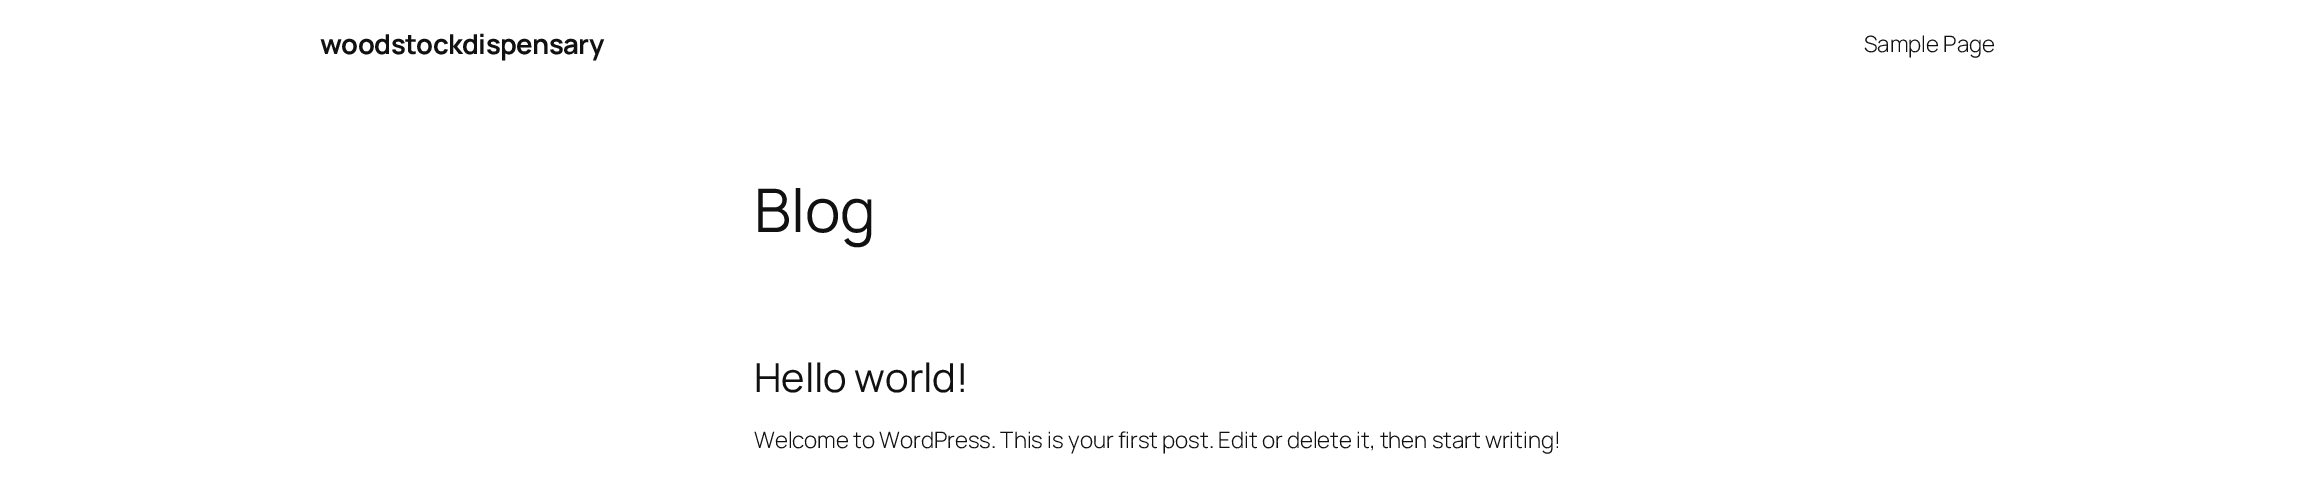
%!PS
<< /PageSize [2315 497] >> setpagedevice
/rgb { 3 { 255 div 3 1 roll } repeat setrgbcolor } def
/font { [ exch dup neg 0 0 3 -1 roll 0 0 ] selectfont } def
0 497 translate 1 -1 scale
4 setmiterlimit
255 255 255 rgb
0 0 2315 497 rectfill
/Manrope-Bold 27.5 font
17 17 17 rgb
320 54 moveto -0.6 0 (woodstockdispensary) ashow
/Manrope-Light 22.5 font
1864 52 moveto -0.12 0 (Sample Page) ashow
/Manrope-Regular 60 font
754 232 moveto -0.12 0 (Blog) ashow
/Manrope-Regular 40 font
754 392 moveto -0.12 0 (Hello world!) ashow
/Manrope-Light 22.5 font
754 448 moveto -0.12 0 (Welcome to WordPress. This is your first post. Edit or delete it, then start writing!) ashow
showpage
